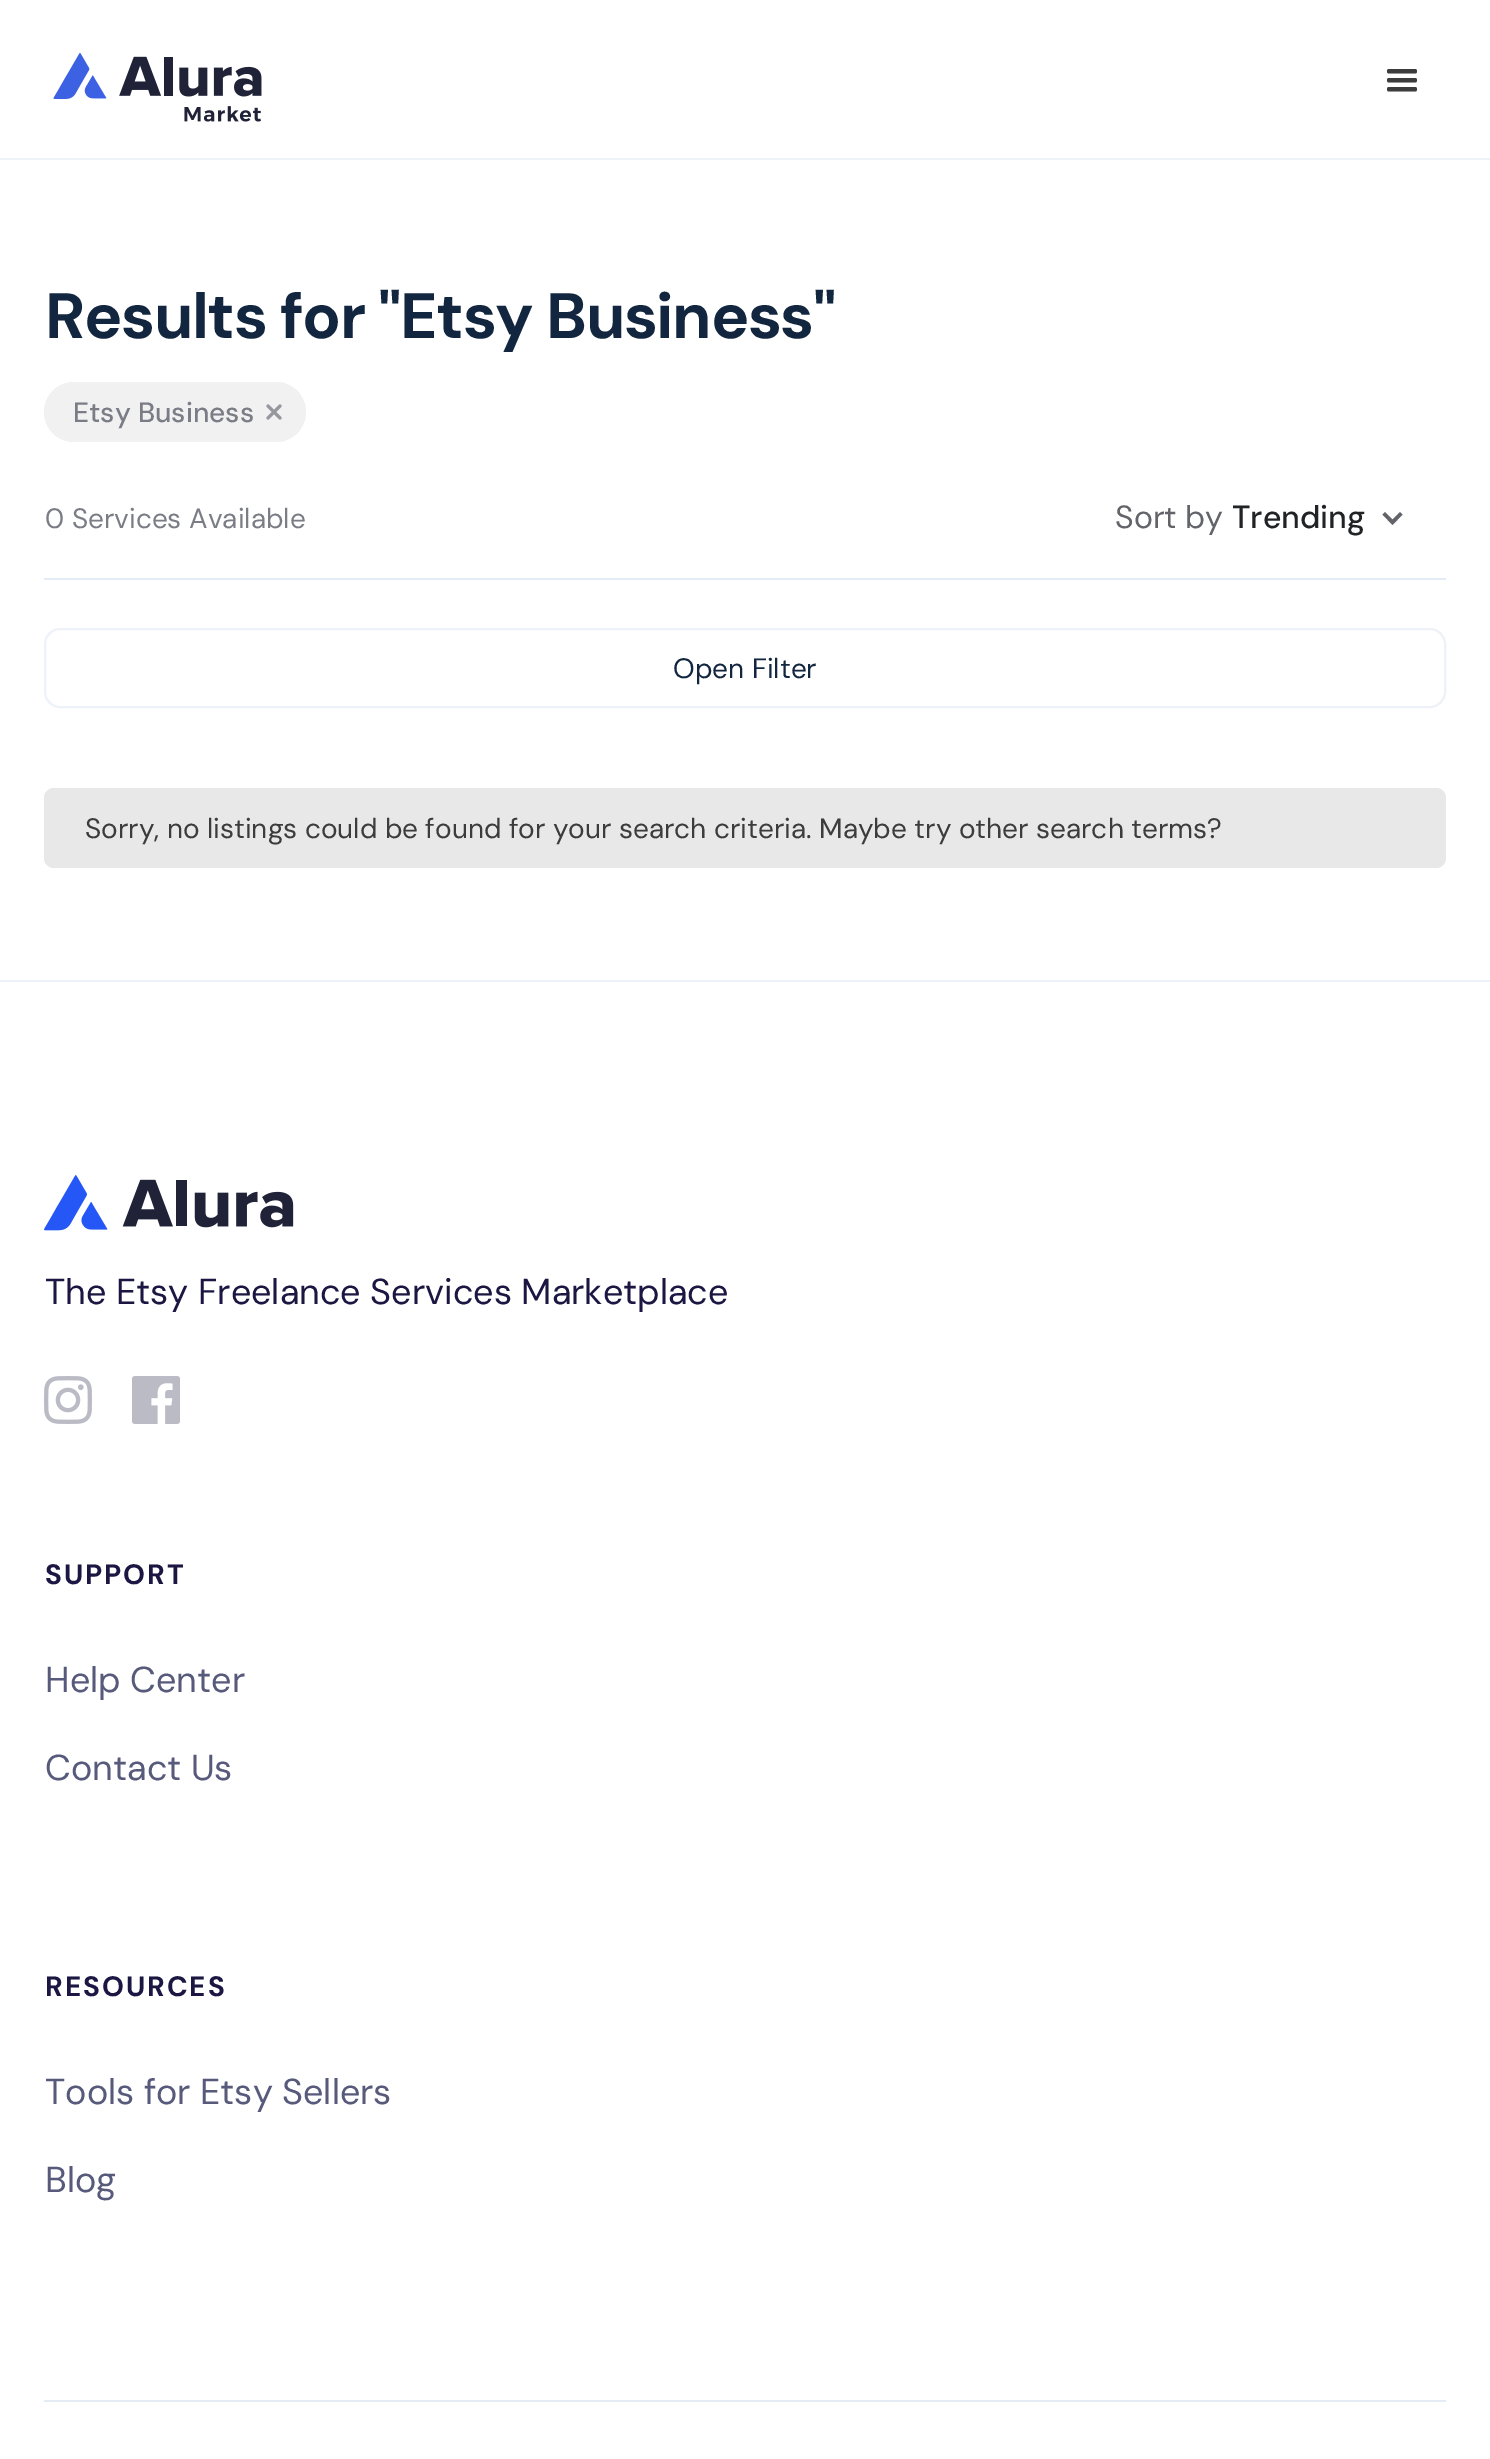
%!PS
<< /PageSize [1490 2459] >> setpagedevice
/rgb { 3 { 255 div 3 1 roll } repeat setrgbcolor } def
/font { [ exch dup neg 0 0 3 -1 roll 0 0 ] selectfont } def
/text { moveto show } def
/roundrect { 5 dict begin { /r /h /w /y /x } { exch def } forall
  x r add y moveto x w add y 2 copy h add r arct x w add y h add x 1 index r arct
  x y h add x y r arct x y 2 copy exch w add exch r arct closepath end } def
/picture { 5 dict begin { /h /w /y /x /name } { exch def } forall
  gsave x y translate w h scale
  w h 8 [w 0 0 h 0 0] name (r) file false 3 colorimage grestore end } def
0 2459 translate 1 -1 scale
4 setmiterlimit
255 255 255 rgb
0 0 1490 2459 rectfill
237 242 249 rgb
0 158 1490 2 rectfill
(img_01.rgb) 53 52 209 70 picture
(img_02.rgb) 1387 69 30 23 picture
241 241 242 rgb
44 382 262 60 30 roundrect fill
149 151 157 rgb
3 setlinewidth
1 setlinecap
1 setlinejoin
280 406 moveto -12 12 rlineto 268 406 moveto 12 12 rlineto stroke
227 235 246 rgb
44 578 1402 2 rectfill
98 100 106 rgb
1400 512 moveto -7.5 7.5 rlineto -7.5 -7.5 rlineto -2.5 2.5 rlineto 10 10.5 rlineto 10 -10.5 rlineto closepath fill
237 242 249 rgb
2 setlinewidth
0 setlinecap
0 setlinejoin
45 629 1400 78 15 roundrect stroke
232 232 232 rgb
44 788 1402 80 10 roundrect fill
237 242 249 rgb
0 980 1490 2 rectfill
(img_03.rgb) 44 1175 250 56 picture
(img_04.rgb) 44 1376 48 48 picture
(img_05.rgb) 132 1376 48 48 picture
228 235 245 rgb
44 2400 1402 2 rectfill
/DMSans-Bold 64 font
18 38 63 rgb
45 338 moveto -1.4 0 (Results for "Etsy Business") ashow
/DMSans-Medium 28 font
122 125 133 rgb
(Etsy Business) 73 422 text
/DMSans-Regular 28 font
(0 Services Available) 45 528 text
/DMSans-Regular 32 font
98 100 106 rgb
(Sort by) 1115 528 text
/DMSans-Medium 32 font
34 35 37 rgb
(Trending) 1232 528 text
/DMSans-Regular 28 font
18 38 63 rgb
(Open Filter) 673 678 text
60 60 60 rgb
(Sorry, no listings could be found for your search criteria. Maybe try other search terms?) 85 838 text
/DMSans-Regular 36 font
27 22 66 rgb
(The Etsy Freelance Services Marketplace) 45 1304 text
/DMSans-Bold 28 font
45 1584 moveto 2 0 (SUPPORT) ashow
/DMSans-Regular 36 font
87 90 123 rgb
(Help Center) 45 1692 text
(Contact Us) 45 1780 text
/DMSans-Bold 28 font
27 22 66 rgb
45 1996 moveto 2 0 (RESOURCES) ashow
/DMSans-Regular 36 font
87 90 123 rgb
(Tools for Etsy Sellers) 45 2104 text
(Blog) 45 2192 text
showpage
